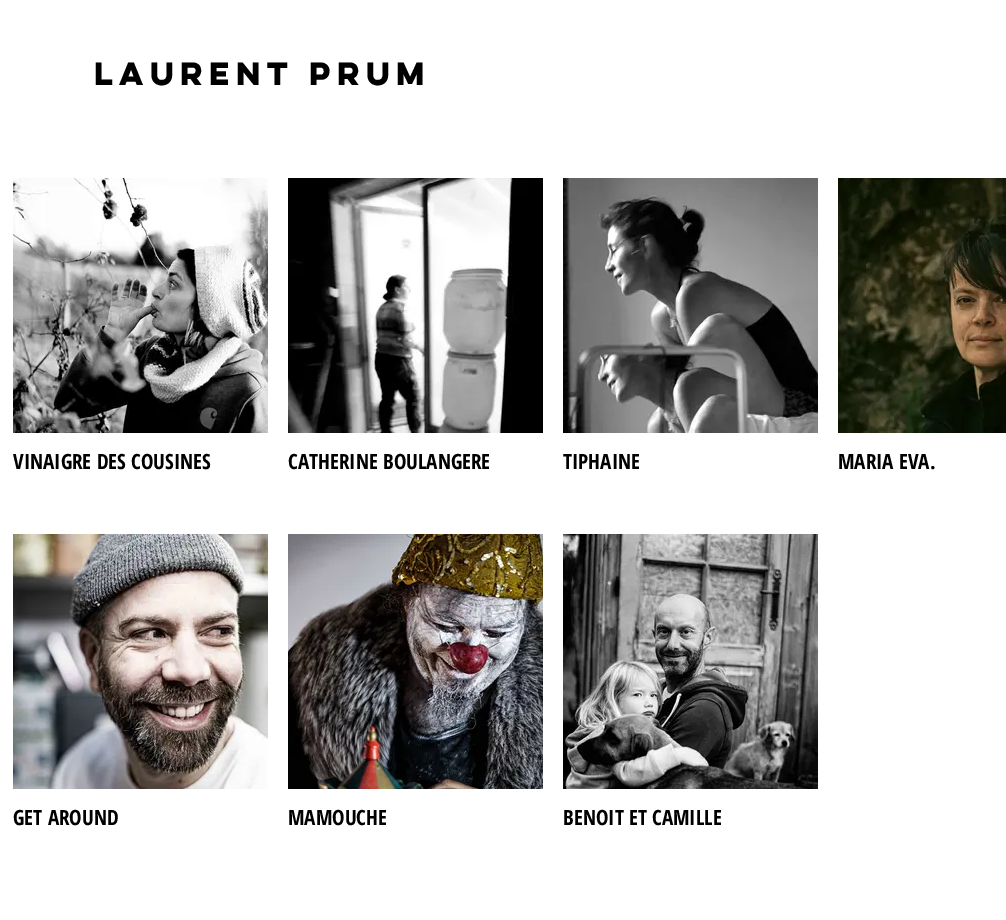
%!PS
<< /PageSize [1006 920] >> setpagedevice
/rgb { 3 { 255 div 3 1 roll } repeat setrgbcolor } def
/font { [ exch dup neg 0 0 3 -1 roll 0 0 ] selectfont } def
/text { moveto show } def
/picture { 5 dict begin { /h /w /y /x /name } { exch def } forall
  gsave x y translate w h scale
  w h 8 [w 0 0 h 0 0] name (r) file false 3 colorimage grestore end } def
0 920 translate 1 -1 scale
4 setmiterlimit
255 255 255 rgb
0 0 1006 920 rectfill
(img_01.rgb) 13 178 255 255 picture
(img_02.rgb) 288 178 255 255 picture
(img_03.rgb) 563 178 255 255 picture
(img_04.rgb) 838 178 168 255 picture
(img_05.rgb) 13 534 255 255 picture
(img_06.rgb) 288 534 255 255 picture
(img_07.rgb) 563 534 255 255 picture
/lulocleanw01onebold-Bold 29 font
0 0 0 rgb
(LAURENT PRUM) 94 85 text
/OpenSansCondensed-Bold 21 font
(VINAIGRE DES COUSINES) 13 469 text
(CATHERINE BOULANGERE) 288 469 text
(TIPHAINE) 563 469 text
(MARIA EVA.) 838 469 text
(GET AROUND) 13 825 text
(MAMOUCHE) 288 825 text
(BENOIT ET CAMILLE) 563 825 text
showpage
